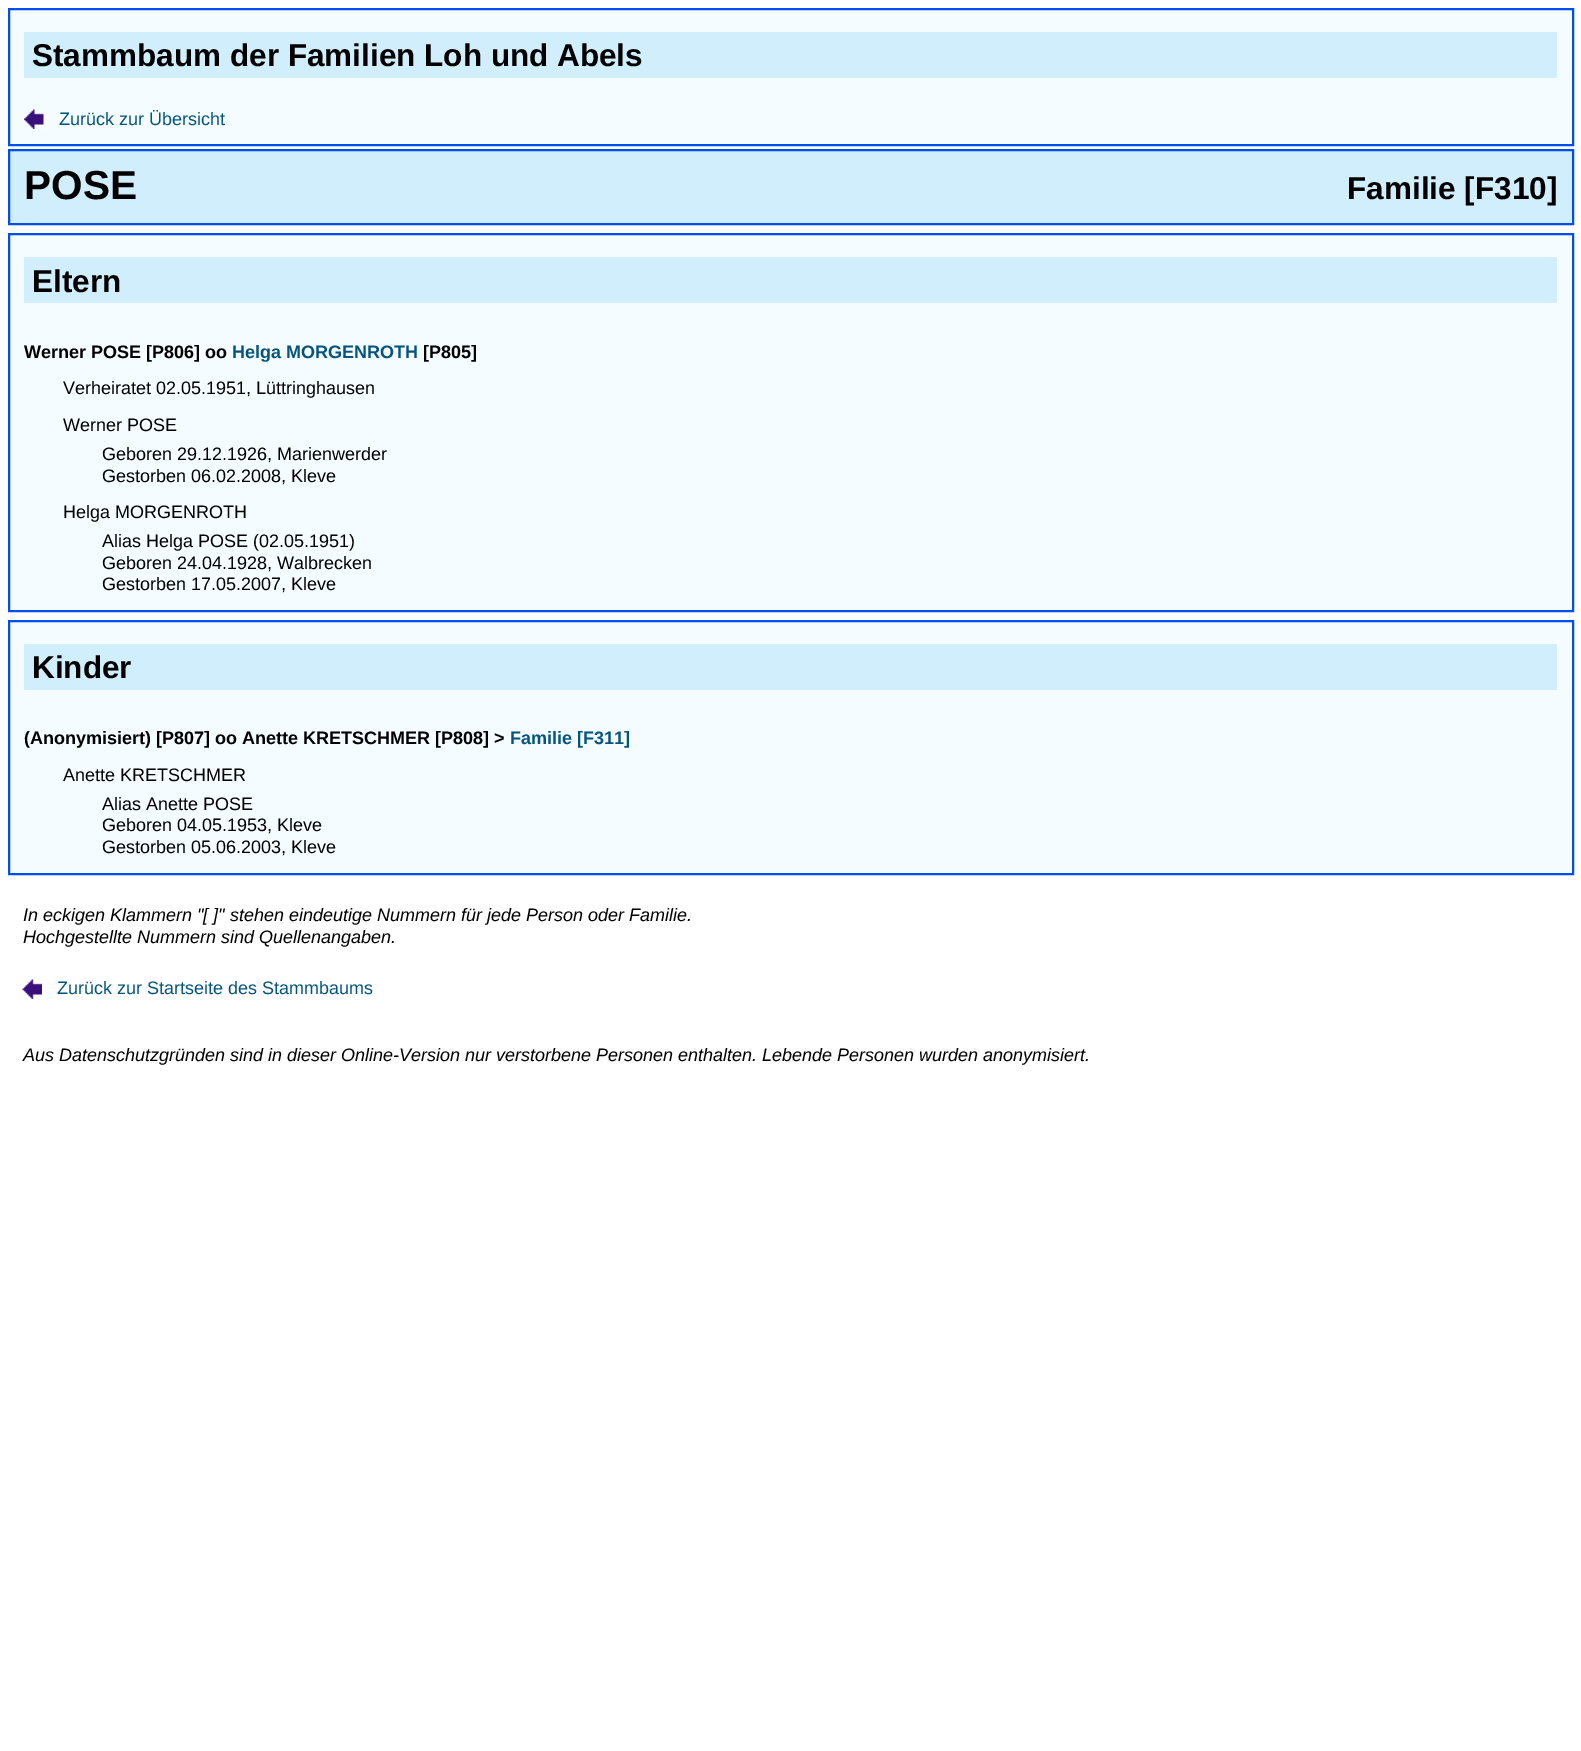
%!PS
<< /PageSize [1581 1751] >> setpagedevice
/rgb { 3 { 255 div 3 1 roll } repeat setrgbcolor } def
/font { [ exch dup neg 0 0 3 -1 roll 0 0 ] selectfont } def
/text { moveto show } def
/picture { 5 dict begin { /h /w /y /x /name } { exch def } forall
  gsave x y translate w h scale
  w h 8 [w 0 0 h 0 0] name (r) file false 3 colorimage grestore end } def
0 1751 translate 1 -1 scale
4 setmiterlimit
255 255 255 rgb
0 0 1581 1751 rectfill
245 252 255 rgb
9 9 moveto 1564 0 rlineto 0 136 rlineto -1564 0 rlineto closepath gsave fill grestore
0 78 236 rgb
2 setlinewidth
stroke
209 238 253 rgb
24 32 1533 46 rectfill
(img_01.rgb) 24 109 20 20 picture
9 150 moveto 1564 0 rlineto 0 74 rlineto -1564 0 rlineto closepath gsave fill grestore
0 78 236 rgb
stroke
245 252 255 rgb
9 234 moveto 1564 0 rlineto 0 377 rlineto -1564 0 rlineto closepath gsave fill grestore
0 78 236 rgb
stroke
209 238 253 rgb
24 257 1533 46 rectfill
245 252 255 rgb
9 621 moveto 1564 0 rlineto 0 253 rlineto -1564 0 rlineto closepath gsave fill grestore
0 78 236 rgb
stroke
209 238 253 rgb
24 644 1533 46 rectfill
(img_02.rgb) 22 979 20 20 picture
/LiberationSans-Bold 31.5 font
0 0 0 rgb
(Stammbaum der Familien Loh und Abels) 32 66 text
/LiberationSans-Regular 18 font
4 84 126 rgb
(Zurück zur Übersicht) 59 125 text
/LiberationSans-Bold 40.5 font
0 0 0 rgb
(POSE) 24 199 text
/LiberationSans-Bold 31.5 font
(Familie [F310]) 1347 199 text
(Eltern) 32 292 text
/LiberationSans-Bold 18 font
(Werner POSE [P806] oo) 24 358 text
4 84 126 rgb
(Helga MORGENROTH) 232 358 text
0 0 0 rgb
([P805]) 423 358 text
/LiberationSans-Regular 18 font
(Verheiratet 02.05.1951, Lüttringhausen) 63 394 text
(Werner POSE) 63 431 text
(Geboren 29.12.1926, Marienwerder) 102 460 text
(Gestorben 06.02.2008, Kleve) 102 482 text
(Helga MORGENROTH) 63 518 text
(Alias Helga POSE \(02.05.1951\)) 102 547 text
(Geboren 24.04.1928, Walbrecken) 102 569 text
(Gestorben 17.05.2007, Kleve) 102 590 text
/LiberationSans-Bold 31.5 font
(Kinder) 32 678 text
/LiberationSans-Bold 18 font
(\(Anonymisiert\) [P807] oo Anette KRETSCHMER [P808] >) 24 744 text
4 84 126 rgb
(Familie [F311]) 510 744 text
/LiberationSans-Regular 18 font
0 0 0 rgb
(Anette KRETSCHMER) 63 781 text
(Alias Anette POSE) 102 810 text
(Geboren 04.05.1953, Kleve) 102 831 text
(Gestorben 05.06.2003, Kleve) 102 853 text
/LiberationSans-Italic 18 font
(In eckigen Klammern "[ ]" stehen eindeutige Nummern für jede Person oder Familie.) 23 921 text
(Hochgestellte Nummern sind Quellenangaben.) 23 943 text
/LiberationSans-Regular 18 font
4 84 126 rgb
(Zurück zur Startseite des Stammbaums) 57 994 text
/LiberationSans-Italic 18 font
0 0 0 rgb
(Aus Datenschutzgründen sind in dieser Online-Version nur verstorbene Personen enthalten. Lebende Personen wurden anonymisiert.) 23 1061 text
showpage
